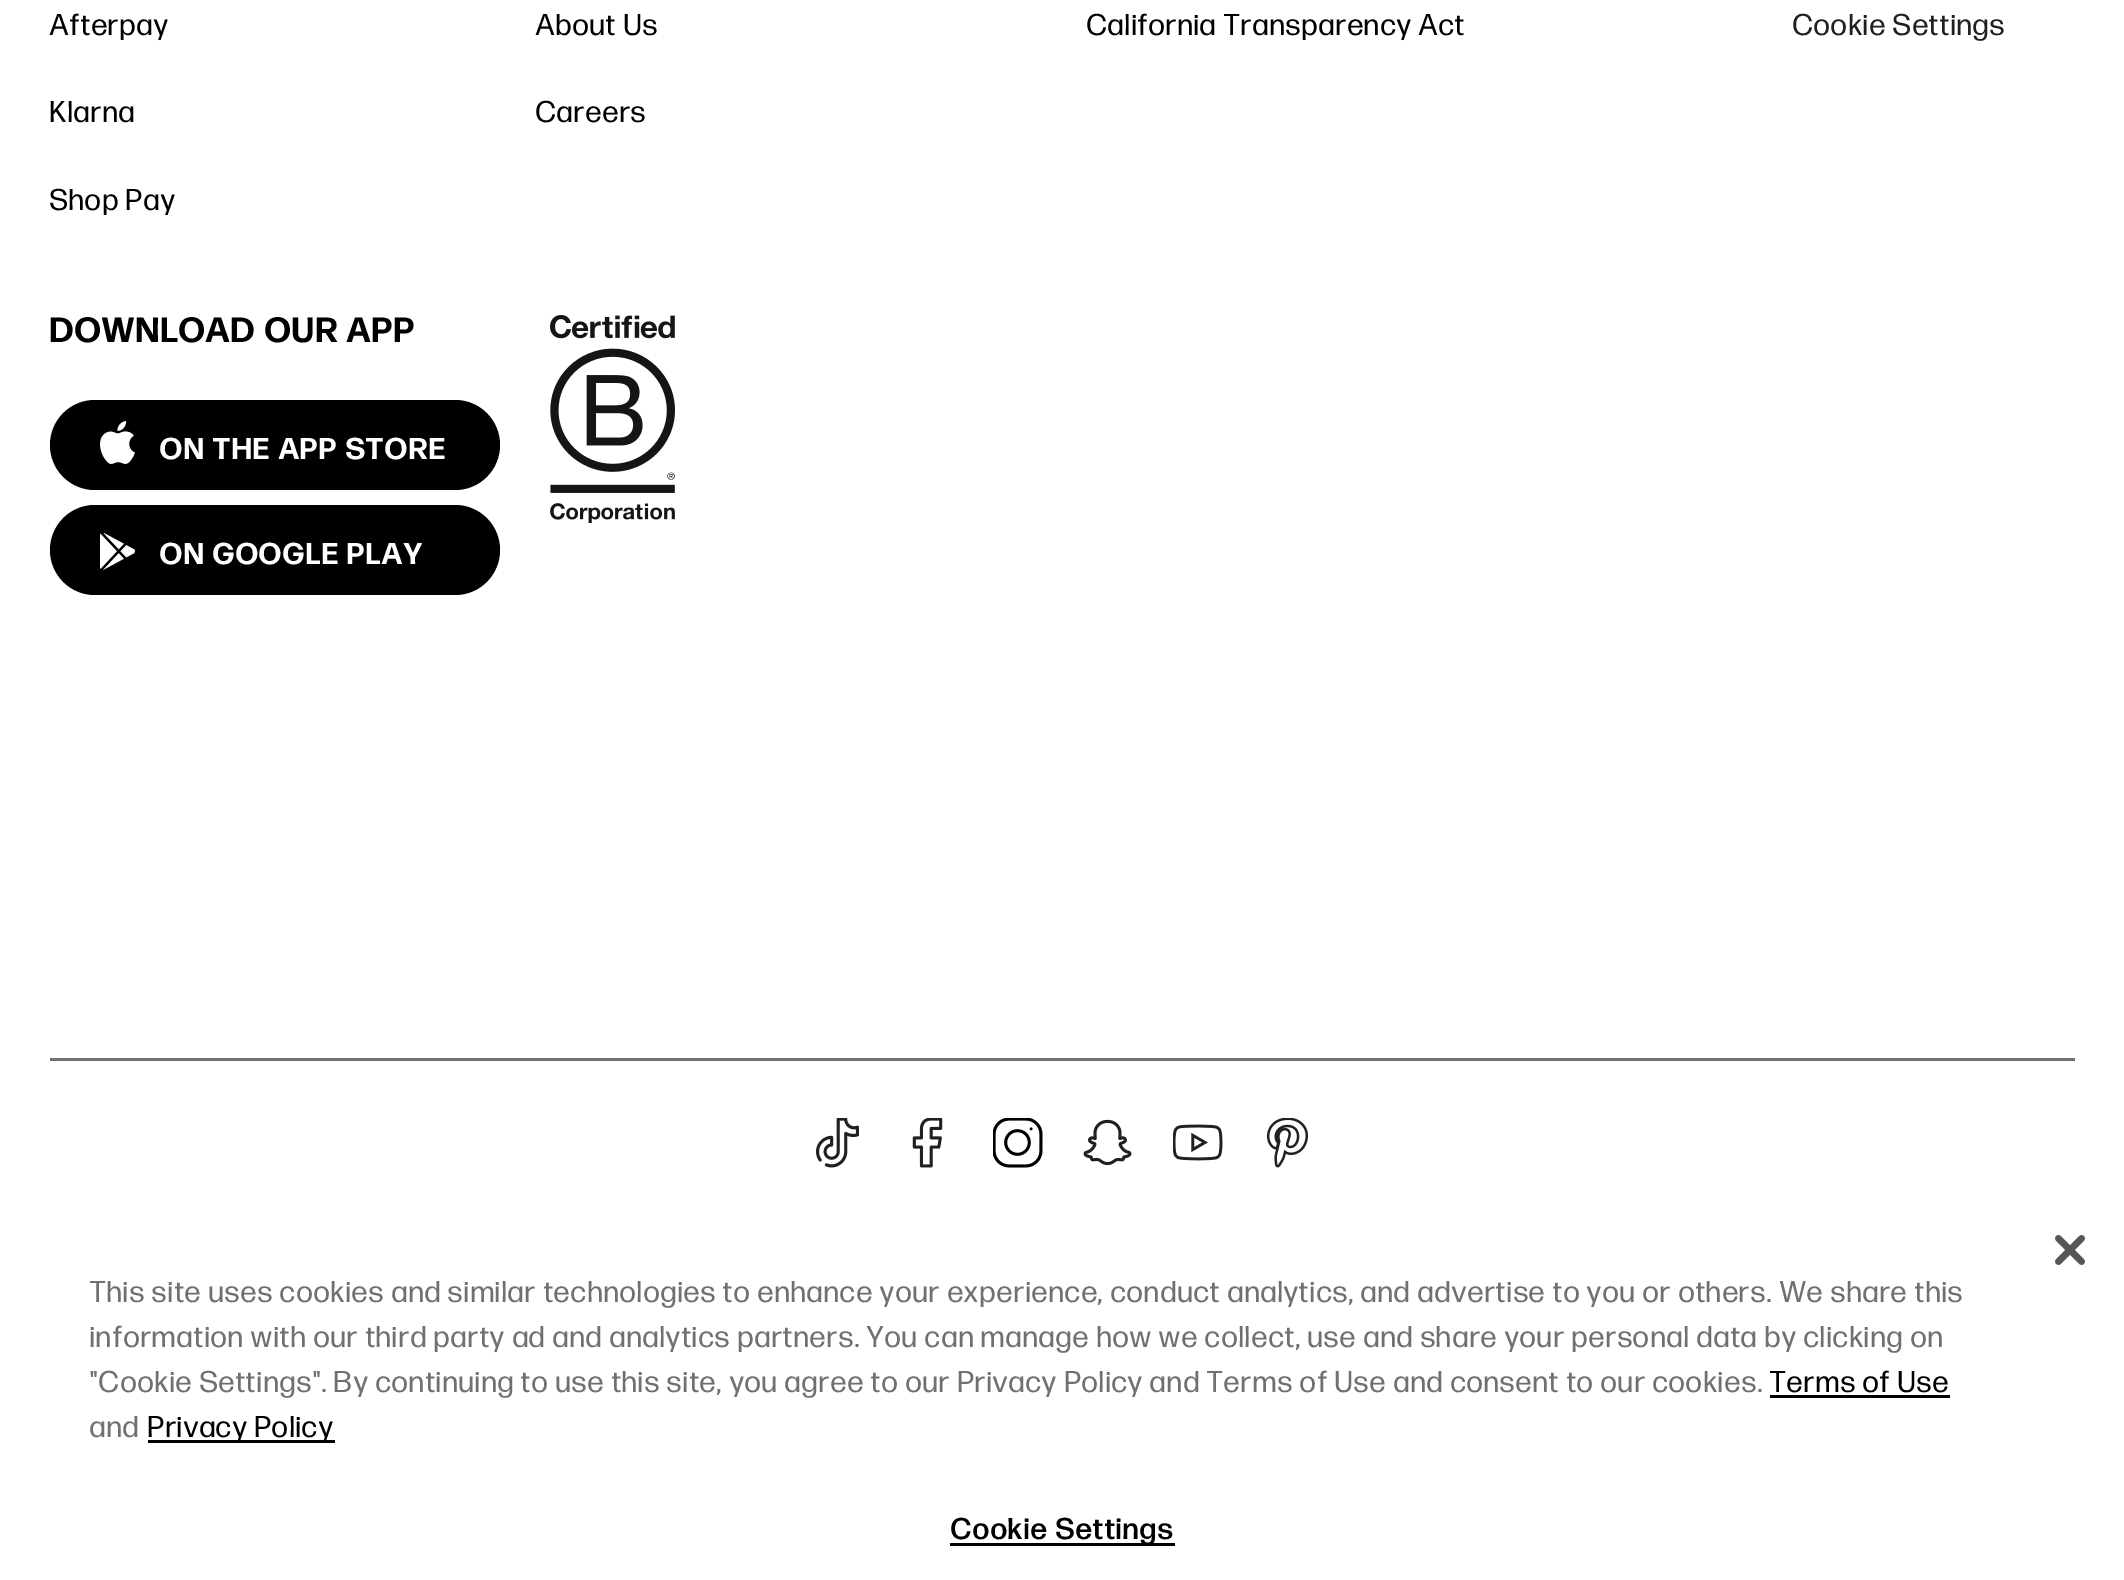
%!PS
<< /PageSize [2124 1580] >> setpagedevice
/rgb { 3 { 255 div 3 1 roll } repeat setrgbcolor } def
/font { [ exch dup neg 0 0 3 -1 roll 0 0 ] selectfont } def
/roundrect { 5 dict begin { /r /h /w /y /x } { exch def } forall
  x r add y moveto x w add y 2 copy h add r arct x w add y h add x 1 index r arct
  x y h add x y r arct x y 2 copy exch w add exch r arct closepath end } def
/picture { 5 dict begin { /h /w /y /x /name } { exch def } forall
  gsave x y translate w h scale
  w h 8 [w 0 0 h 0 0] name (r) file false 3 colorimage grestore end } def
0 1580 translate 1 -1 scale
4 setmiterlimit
255 255 255 rgb
0 0 2124 1580 rectfill
0 0 0 rgb
50 400 450 90 45 roundrect fill
(img_01.rgb) 100 421 35 43 picture
50 505 450 90 45 roundrect fill
(img_02.rgb) 100 533 35 37 picture
(img_03.rgb) 550 315 125 208 picture
112 112 112 rgb
50 1058 2025 3 rectfill
(img_04.rgb) 816 1118 43 50 picture
(img_05.rgb) 912 1118 31 50 picture
(img_06.rgb) 993 1118 50 50 picture
(img_07.rgb) 1083 1119 49 47 picture
(img_08.rgb) 1173 1124 50 37 picture
(img_09.rgb) 1266 1118 43 50 picture
(img_10.rgb) 2055 1235 30 30 picture
0 0 0 rgb
1770 1395 180 3 rectfill
148 1440 187 3 rectfill
950 1543 225 3 rectfill
/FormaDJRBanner-Regular 30 font
50 35 moveto 2 0 (Afterpay) ashow
50 122 moveto 2 0 (Klarna) ashow
50 210 moveto 2 0 (Shop Pay) ashow
536 35 moveto 2 0 (About Us) ashow
536 122 moveto 2 0 (Careers) ashow
1087 35 moveto 2 0 (California Transparency Act) ashow
35 31 32 rgb
1793 35 moveto 2 0 (Cookie Settings) ashow
/FormaDJRBanner-Bold 35 font
0 0 0 rgb
50 342 moveto 2 0 (DOWNLOAD OUR APP) ashow
/FormaDJRBanner-Bold 30 font
255 255 255 rgb
160 459 moveto 2 0 (ON THE APP STORE) ashow
160 564 moveto 2 0 (ON GOOGLE PLAY) ashow
/FormaDJRBanner-Regular 30 font
112 112 112 rgb
90 1302 moveto 2 0 (This site uses cookies and similar technologies to enhance your experience, conduct analytics, and advertise to you or others. We share this) ashow
90 1347 moveto 2 0 (information with our third party ad and analytics partners. You can manage how we collect, use and share your personal data by clicking on) ashow
90 1392 moveto 2 0 ("Cookie Settings". By continuing to use this site, you agree to our Privacy Policy and Terms of Use and consent to our cookies.) ashow
0 0 0 rgb
1770 1392 moveto 2 0 (Terms of Use) ashow
112 112 112 rgb
90 1437 moveto 2 0 (and) ashow
0 0 0 rgb
148 1437 moveto 2 0 (Privacy Policy) ashow
/FormaDJRBanner-Medium 30 font
951 1539 moveto 2 0 (Cookie Settings) ashow
showpage
